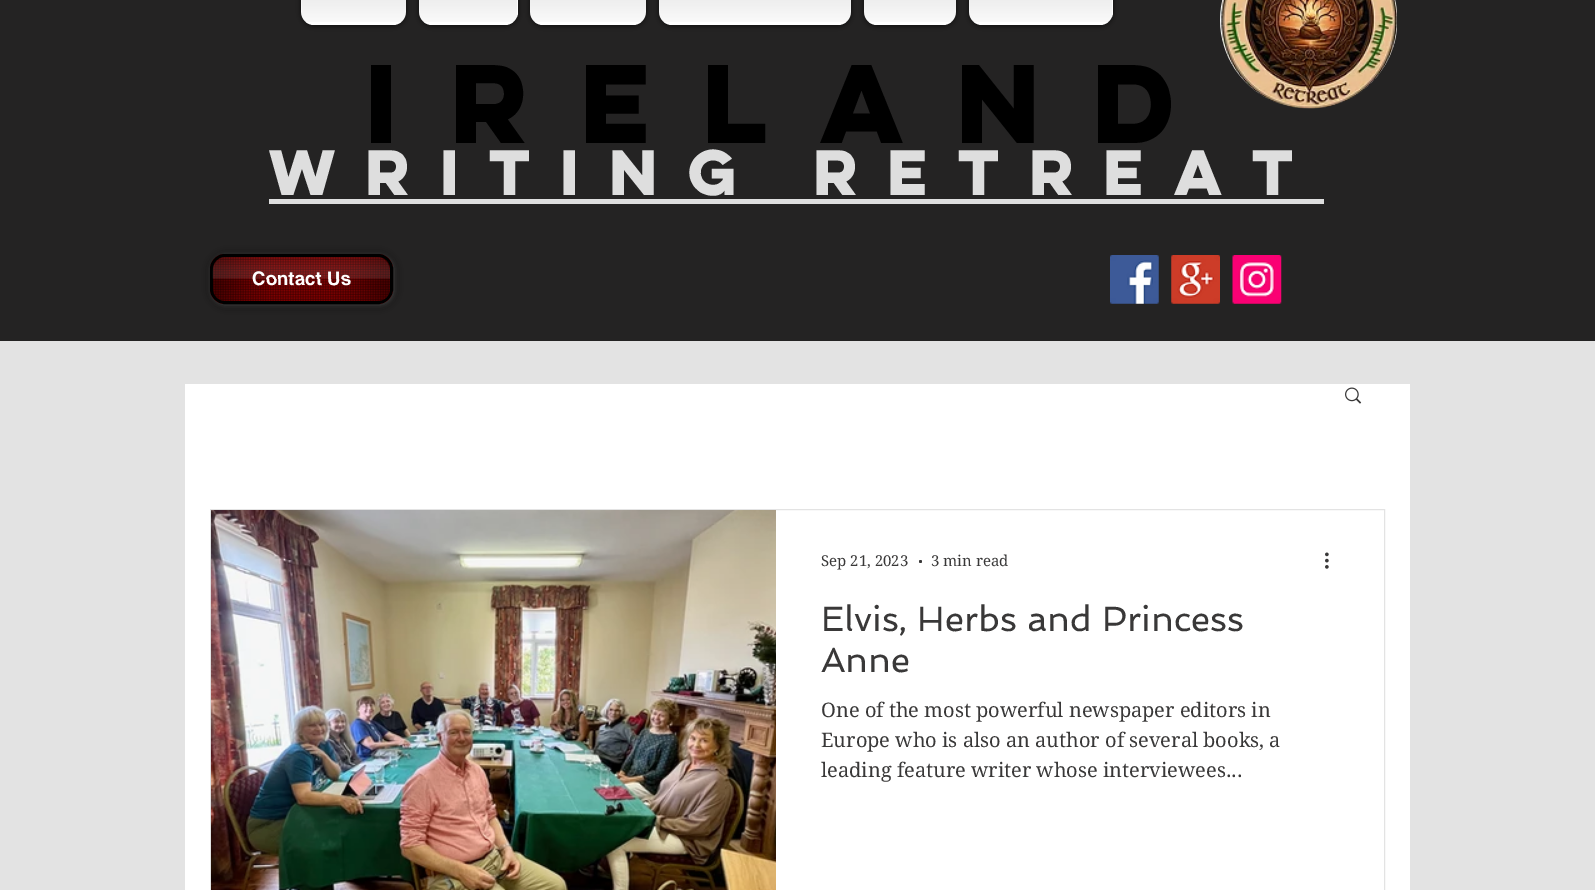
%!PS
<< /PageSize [1595 890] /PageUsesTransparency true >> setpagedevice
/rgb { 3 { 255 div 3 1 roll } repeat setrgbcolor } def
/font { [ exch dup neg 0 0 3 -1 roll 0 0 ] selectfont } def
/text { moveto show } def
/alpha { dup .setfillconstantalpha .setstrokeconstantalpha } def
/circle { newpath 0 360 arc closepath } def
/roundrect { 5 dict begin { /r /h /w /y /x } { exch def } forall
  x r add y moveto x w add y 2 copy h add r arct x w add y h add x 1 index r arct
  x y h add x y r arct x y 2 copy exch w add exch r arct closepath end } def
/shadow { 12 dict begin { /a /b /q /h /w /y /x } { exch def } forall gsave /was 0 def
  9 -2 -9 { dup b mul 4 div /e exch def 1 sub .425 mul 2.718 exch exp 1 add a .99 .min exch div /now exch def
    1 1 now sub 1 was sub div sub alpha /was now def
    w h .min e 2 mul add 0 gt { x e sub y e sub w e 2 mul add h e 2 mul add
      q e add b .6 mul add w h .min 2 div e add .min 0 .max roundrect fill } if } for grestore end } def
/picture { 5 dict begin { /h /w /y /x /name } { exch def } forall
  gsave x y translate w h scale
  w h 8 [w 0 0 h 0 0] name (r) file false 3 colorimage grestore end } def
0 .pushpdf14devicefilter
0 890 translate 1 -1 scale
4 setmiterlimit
227 227 227 rgb
0 0 1595 890 rectfill
36 35 35 rgb
0 0 1595 341 rectfill
0 0 0 rgb
301 -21 105 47 13 2.5 0.6 shadow
255 255 255 rgb
301 -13 105 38 13 roundrect fill
(img_01.rgb) 301 0 105 22 picture
0 0 0 rgb
419 -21 99 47 13 2.5 0.6 shadow
255 255 255 rgb
419 -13 99 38 13 roundrect fill
(img_02.rgb) 419 0 98 22 picture
0 0 0 rgb
530 -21 116 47 13 2.5 0.6 shadow
255 255 255 rgb
530 -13 116 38 13 roundrect fill
(img_03.rgb) 530 0 116 22 picture
0 0 0 rgb
659 -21 192 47 13 2.5 0.6 shadow
255 255 255 rgb
659 -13 192 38 13 roundrect fill
(img_04.rgb) 659 0 192 22 picture
0 0 0 rgb
864 -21 92 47 13 2.5 0.6 shadow
255 255 255 rgb
864 -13 92 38 13 roundrect fill
(img_05.rgb) 864 0 92 22 picture
0 0 0 rgb
969 -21 144 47 13 2.5 0.6 shadow
255 255 255 rgb
969 -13 144 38 13 roundrect fill
(img_06.rgb) 969 0 143 22 picture
(img_07.rgb) 1220 0 177 109 picture
222 222 222 rgb
269 199 1055 5 rectfill
255 255 255 rgb
211 255 183 50 15 2 0.3 shadow
0 0 0 rgb
210 254 185 52 16 4 0.6 shadow
139 0 0 rgb
210 254 183 50 15 roundrect fill
(img_08.rgb) 210 254 183 50 picture
0 0 0 rgb
3 setlinewidth
211.5 255.5 180 47 13.5 roundrect stroke
(img_10.rgb) 213 257 54 44 picture
(img_11.rgb) 334 257 56 44 picture
(img_12.rgb) 1110 255 49 49 picture
(img_13.rgb) 1171 255 49 49 picture
(img_14.rgb) 1232 255 50 49 picture
255 255 255 rgb
185 384 1225 506 rectfill
(img_15.rgb) 1345 387 17 17 picture
227 227 227 rgb
1 setlinewidth
210.5 509.5 1174 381 rectstroke
(img_16.rgb) 211 510 565 380 picture
57 56 56 rgb
920.5 561.5 1.5 circle fill
(img_17.rgb) 1325 552 4 17 picture
/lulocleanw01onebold-Bold 100 font
0 0 0 rgb
365 143 moveto 30 0 (IRELAND) ashow
/lulocleanw01onebold-Bold 57.5 font
222 222 222 rgb
269 195 moveto 17.25 0 (WRITING RETREAT) ashow
/helvetica-Bold 18.75 font
255 255 255 rgb
(Contact Us) 252 285 text
(img_09.rgb) 212 257 178 22 picture
/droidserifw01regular-Regular 15 font
57 56 56 rgb
(Sep 21, 2023) 821 566 text
(3 min read) 931 566 text
/Spinnaker-Regular 35 font
(Elvis, Herbs and Princess) 821 631 text
(Anne) 821 672 text
/droidserifw01regular-Regular 20 font
(One of the most powerful newspaper editors in) 821 717 text
(Europe who is also an author of several books, a) 821 747 text
(leading feature writer whose interviewees...) 821 777 text
.poppdf14devicefilter showpage
